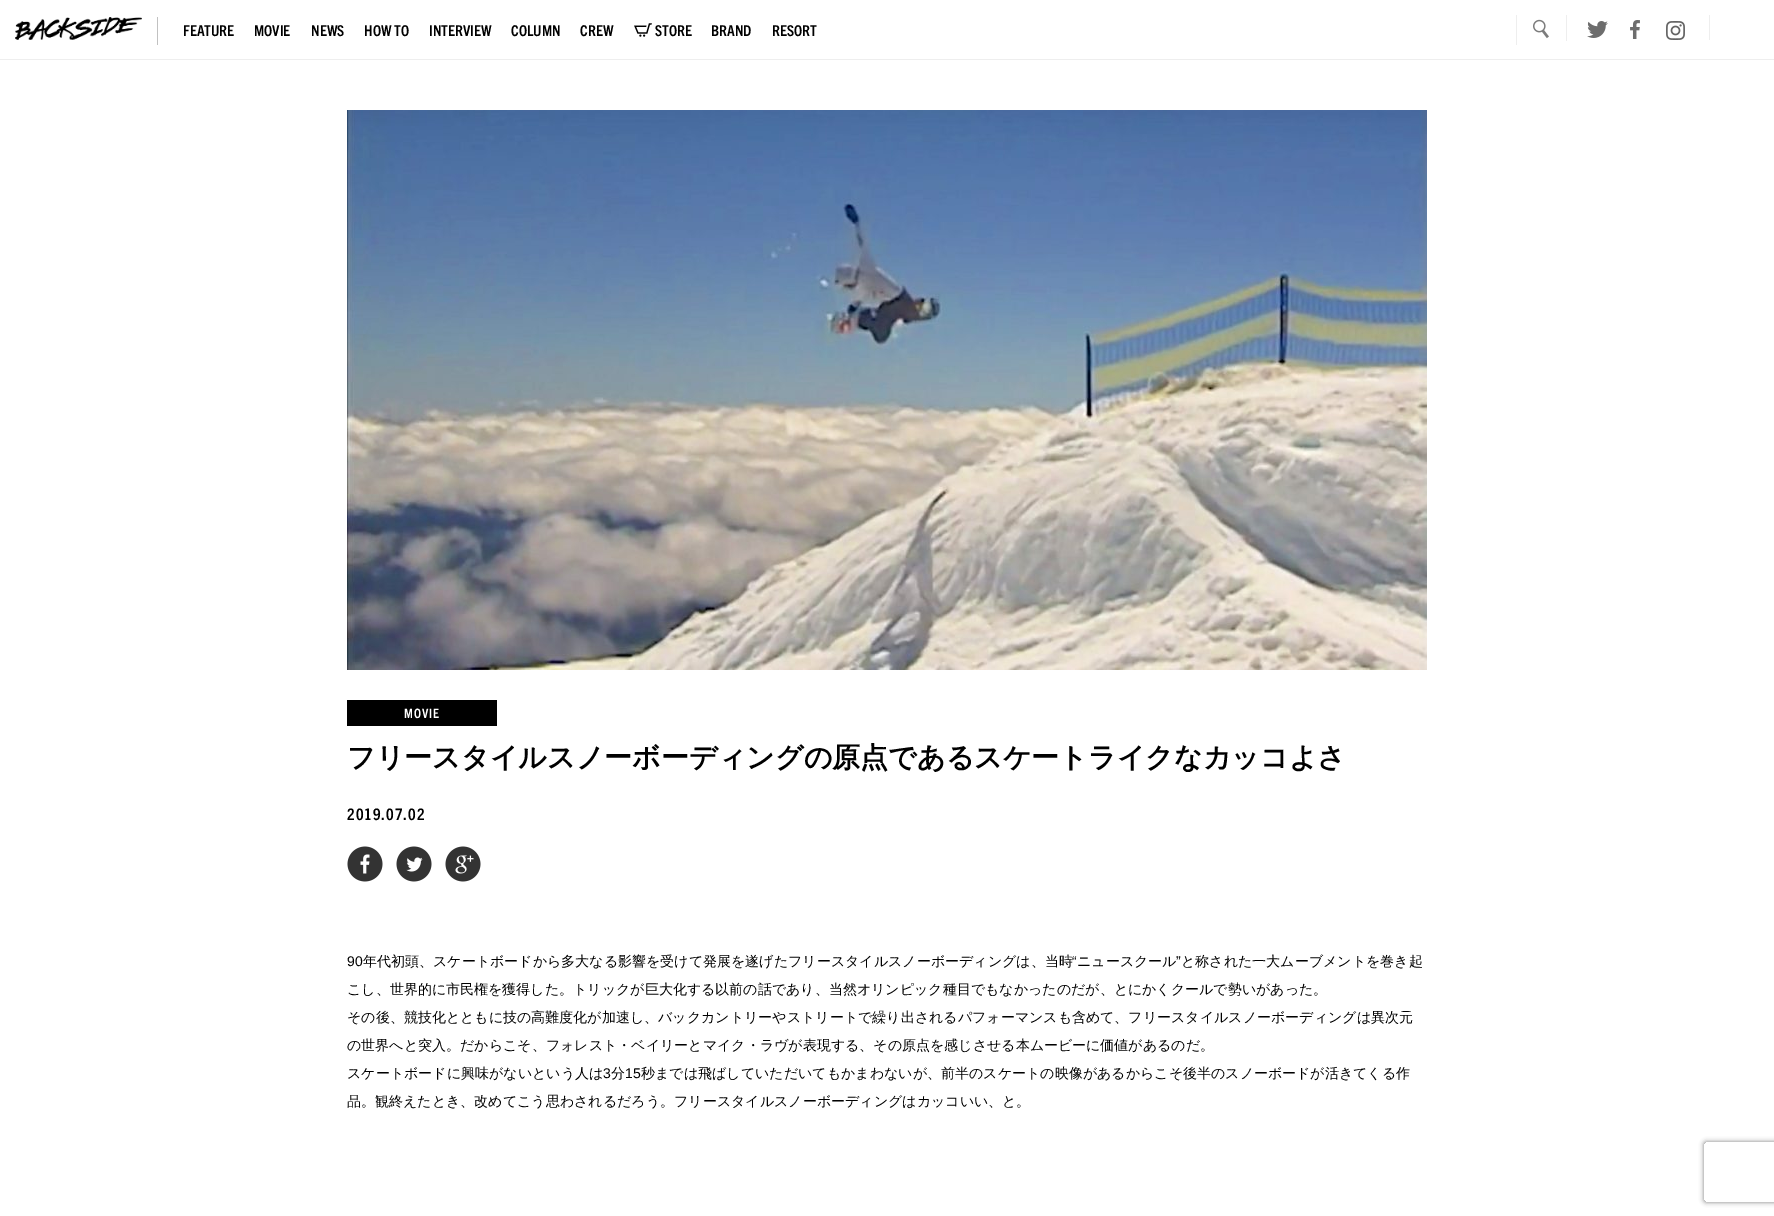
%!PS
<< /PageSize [1774 1216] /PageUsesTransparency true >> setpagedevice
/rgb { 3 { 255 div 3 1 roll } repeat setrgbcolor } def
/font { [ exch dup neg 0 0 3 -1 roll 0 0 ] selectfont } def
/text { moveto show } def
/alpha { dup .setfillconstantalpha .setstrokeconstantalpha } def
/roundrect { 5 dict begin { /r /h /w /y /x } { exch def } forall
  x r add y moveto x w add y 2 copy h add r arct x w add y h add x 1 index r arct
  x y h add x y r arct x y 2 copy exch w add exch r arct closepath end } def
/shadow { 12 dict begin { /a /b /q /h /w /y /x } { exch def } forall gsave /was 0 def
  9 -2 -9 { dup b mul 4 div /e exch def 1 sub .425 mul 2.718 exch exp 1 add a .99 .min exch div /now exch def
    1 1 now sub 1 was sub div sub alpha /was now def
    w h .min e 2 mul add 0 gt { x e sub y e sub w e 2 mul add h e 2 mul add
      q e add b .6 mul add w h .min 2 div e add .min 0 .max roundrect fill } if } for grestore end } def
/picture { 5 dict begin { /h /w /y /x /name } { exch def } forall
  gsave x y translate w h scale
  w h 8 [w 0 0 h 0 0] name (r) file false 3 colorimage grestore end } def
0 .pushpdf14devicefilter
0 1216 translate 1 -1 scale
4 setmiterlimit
255 255 255 rgb
0 0 1774 1216 rectfill
238 238 238 rgb
0 59 1774 1 rectfill
193 193 193 rgb
157 17 1 28 rectfill
(img_01.rgb) 15 17 127 23 picture
(img_02.rgb) 634 23 18 14 picture
238 238 238 rgb
1516 15 1 30 rectfill
(img_03.rgb) 1533 19 16 20 picture
1566 15 1 26 rectfill
(img_04.rgb) 1587 21 21 17 picture
(img_05.rgb) 1630 20 10 19 picture
1709 15 1 25 rectfill
(img_06.rgb) 1666 21 19 19 picture
(img_07.rgb) 347 110 1080 560 picture
0 0 0 rgb
347 700 150 26 rectfill
(img_08.rgb) 347 846 36 36 picture
(img_09.rgb) 396 846 36 36 picture
(img_10.rgb) 445 846 36 36 picture
gsave
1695 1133 moveto 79 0 rlineto 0 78 rlineto -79 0 rlineto closepath 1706 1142 moveto 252 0 rlineto 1 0 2 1 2 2 rcurveto 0 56 rlineto 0 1 -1 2 -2 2 rcurveto -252 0 rlineto -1 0 -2 -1 -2 -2 rcurveto 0 -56 rlineto 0 -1 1 -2 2 -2 rcurveto closepath eoclip newpath
128 128 128 rgb
1704 1142 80 60 2 2.5 1 shadow
grestore
/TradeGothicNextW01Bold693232-Bold 15 font
(FEATURE) 183 36 text
(MOVIE) 254 36 text
(NEWS) 311 36 text
(HOW TO) 364 36 text
(INTERVIEW) 429 36 text
(COLUMN) 511 36 text
(CREW) 580 36 text
(STORE) 655 36 text
(BRAND) 711 36 text
(RESORT) 772 36 text
/TradeGothicNextW01Bold693232-Bold 13 font
255 255 255 rgb
404 718 moveto 1 0 (MOVIE) ashow
/WenQuanYiZenHei-Bold 28 font
0 0 0 rgb
(フリースタイルスノーボーディングの原点であるスケートライクなカッコよさ) 347 767 text
/TradeGothicNextW01Bold693232-Bold 16 font
347 820 moveto 1 0 (2019.07.02) ashow
/LiberationSans-Regular 14 font
(90) 347 966 text
/WenQuanYiZenHei-Medium 14 font
(年代初頭、スケートボードから多大なる影響を受けて発展を遂げたフリースタイルスノーボーディングは、当時) 363 966 text
/LiberationSans-Regular 14 font
(“) 1072 966 text
/WenQuanYiZenHei-Medium 14 font
(ニュースクール) 1077 966 text
/LiberationSans-Regular 14 font
(”) 1176 966 text
/WenQuanYiZenHei-Medium 14 font
(と称された一大ムーブメントを巻き起) 1181 966 text
(こし、世界的に市民権を獲得した。トリックが巨大化する以前の話であり、当然オリンピック種目でもなかったのだが、とにかくクールで勢いがあった。) 347 994 text
(その後、競技化とともに技の高難度化が加速し、バックカントリーやストリートで繰り出されるパフォーマンスも含めて、フリースタイルスノーボーディングは異次元) 347 1022 text
(の世界へと突入。だからこそ、フォレスト・ベイリーとマイク・ラヴが表現する、その原点を感じさせる本ムービーに価値があるのだ。) 347 1050 text
(スケートボードに興味がないという人は) 347 1078 text
/LiberationSans-Regular 14 font
(3) 603 1078 text
/WenQuanYiZenHei-Medium 14 font
(分) 611 1078 text
/LiberationSans-Regular 14 font
(15) 625 1078 text
/WenQuanYiZenHei-Medium 14 font
(秒までは飛ばしていただいてもかまわないが、前半のスケートの映像があるからこそ後半のスノーボードが活きてくる作) 641 1078 text
(品。観終えたとき、改めてこう思わされるだろう。フリースタイルスノーボーディングはカッコいい、と。) 347 1106 text
.poppdf14devicefilter showpage
